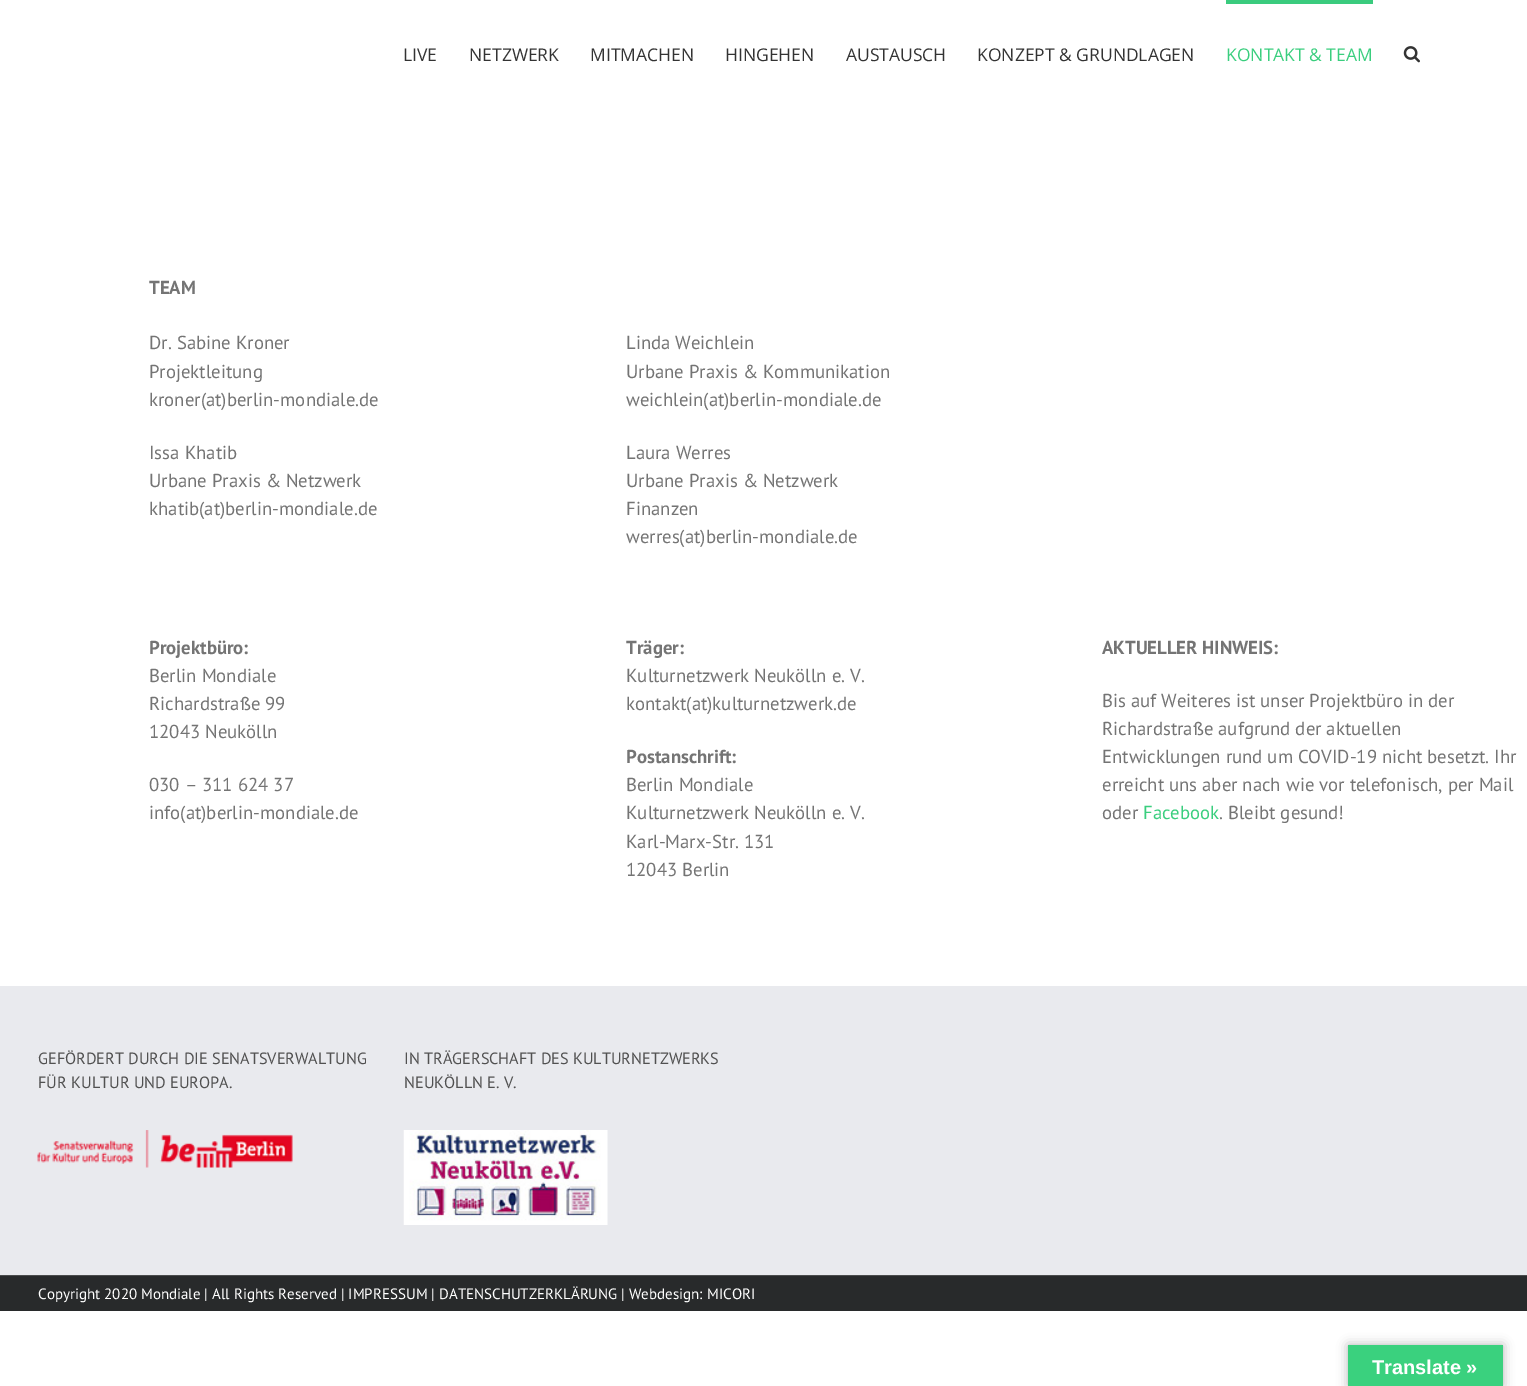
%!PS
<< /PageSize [1527 1386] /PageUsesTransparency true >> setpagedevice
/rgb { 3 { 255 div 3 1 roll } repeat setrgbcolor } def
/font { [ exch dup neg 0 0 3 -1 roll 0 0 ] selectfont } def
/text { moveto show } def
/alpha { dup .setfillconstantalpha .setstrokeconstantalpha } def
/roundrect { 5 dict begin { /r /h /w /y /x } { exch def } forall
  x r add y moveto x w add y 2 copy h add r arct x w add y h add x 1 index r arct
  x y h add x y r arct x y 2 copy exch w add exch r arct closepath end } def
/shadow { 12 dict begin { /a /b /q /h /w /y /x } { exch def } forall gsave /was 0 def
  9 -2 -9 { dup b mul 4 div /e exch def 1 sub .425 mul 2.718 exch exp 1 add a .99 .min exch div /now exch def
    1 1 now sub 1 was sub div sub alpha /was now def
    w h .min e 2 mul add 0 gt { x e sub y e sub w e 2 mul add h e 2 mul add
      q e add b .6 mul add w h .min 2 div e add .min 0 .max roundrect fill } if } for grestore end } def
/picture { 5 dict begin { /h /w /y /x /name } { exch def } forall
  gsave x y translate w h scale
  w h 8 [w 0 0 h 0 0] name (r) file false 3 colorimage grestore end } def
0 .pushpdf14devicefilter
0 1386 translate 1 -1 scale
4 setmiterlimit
255 255 255 rgb
0 0 1527 1386 rectfill
58 203 126 rgb
1226 0 147 4 rectfill
(img_01.rgb) 1403 46 17 17 picture
233 234 238 rgb
0 986 1527 289 rectfill
(img_02.rgb) 37 1130 256 38 picture
(img_03.rgb) 403 1130 205 95 picture
40 42 43 rgb
0 1276 1527 35 rectfill
75 76 77 rgb
0 1275 1527 1 rectfill
0 0 0 rgb
1348 1345 155 41 0 5.5 0.3 shadow
58 209 126 rgb
1348 1345 155 41 rectfill
/OpenSans-Regular 17.5 font
51 51 51 rgb
(LIVE) 403 61 text
(NETZWERK) 469 61 text
(MITMACHEN) 590 61 text
(HINGEHEN) 725 61 text
(AUSTAUSCH) 846 61 text
(KONZEPT & GRUNDLAGEN) 977 61 text
58 206 126 rgb
(KONTAKT & TEAM) 1226 61 text
/PTSans-Bold 18.75 font
116 116 116 rgb
(TEAM) 149 294 text
/PTSans-Regular 18.75 font
(Dr. Sabine Kroner) 149 349 text
(Projektleitung) 149 378 text
(kroner\(at\)berlin-mondiale.de) 149 406 text
(Issa Khatib) 149 459 text
(Urbane Praxis & Netzwerk) 149 487 text
(khatib\(at\)berlin-mondiale.de) 149 515 text
(Linda Weichlein) 626 349 text
(Urbane Praxis & Kommunikation) 626 378 text
(weichlein\(at\)berlin-mondiale.de) 626 406 text
(Laura Werres) 626 459 text
(Urbane Praxis & Netzwerk) 626 487 text
(Finanzen) 626 515 text
(werres\(at\)berlin-mondiale.de) 626 543 text
/PTSans-Bold 18.75 font
(Projektbüro:) 149 654 text
/PTSans-Regular 18.75 font
(Berlin Mondiale) 149 682 text
(Richardstraße 99) 149 710 text
(12043 Neukölln) 149 738 text
(030 – 311 624 37) 149 791 text
(info\(at\)berlin-mondiale.de) 149 819 text
/PTSans-Bold 18.75 font
(Träger:) 626 654 text
/PTSans-Regular 18.75 font
(Kulturnetzwerk Neukölln e. V.) 626 682 text
(kontakt\(at\)kulturnetzwerk.de) 626 710 text
/PTSans-Bold 18.75 font
(Postanschrift:) 626 763 text
/PTSans-Regular 18.75 font
(Berlin Mondiale) 626 791 text
(Kulturnetzwerk Neukölln e. V.) 626 819 text
(Karl-Marx-Str. 131) 626 848 text
(12043 Berlin) 626 876 text
/PTSans-Bold 18.75 font
(AKTUELLER HINWEIS:) 1102 654 text
/PTSans-Regular 18.75 font
(Bis auf Weiteres ist unser Projektbüro in der) 1102 707 text
(Richardstraße aufgrund der aktuellen) 1102 735 text
(Entwicklungen rund um COVID-19 nicht besetzt. Ihr) 1102 763 text
(erreicht uns aber nach wie vor telefonisch, per Mail) 1102 791 text
(oder) 1102 819 text
58 206 126 rgb
(Facebook) 1143 819 text
116 116 116 rgb
(. Bleibt gesund!) 1219 819 text
/PTSans-Regular 16.25 font
81 81 81 rgb
(GEFÖRDERT DURCH DIE SENATSVERWALTUNG) 38 1064 text
(FÜR KULTUR UND EUROPA.) 38 1088 text
(IN TRÄGERSCHAFT DES KULTURNETZWERKS) 404 1064 text
(NEUKÖLLN E. V.) 404 1088 text
/PTSans-Regular 15 font
255 255 255 rgb
(Copyright 2020 Mondiale | All Rights Reserved | IMPRESSUM | DATENSCHUTZERKLÄRUNG | Webdesign: MICORI) 38 1299 text
/LiberationSans-Bold 20 font
(Translate ») 1372 1374 text
.poppdf14devicefilter showpage
